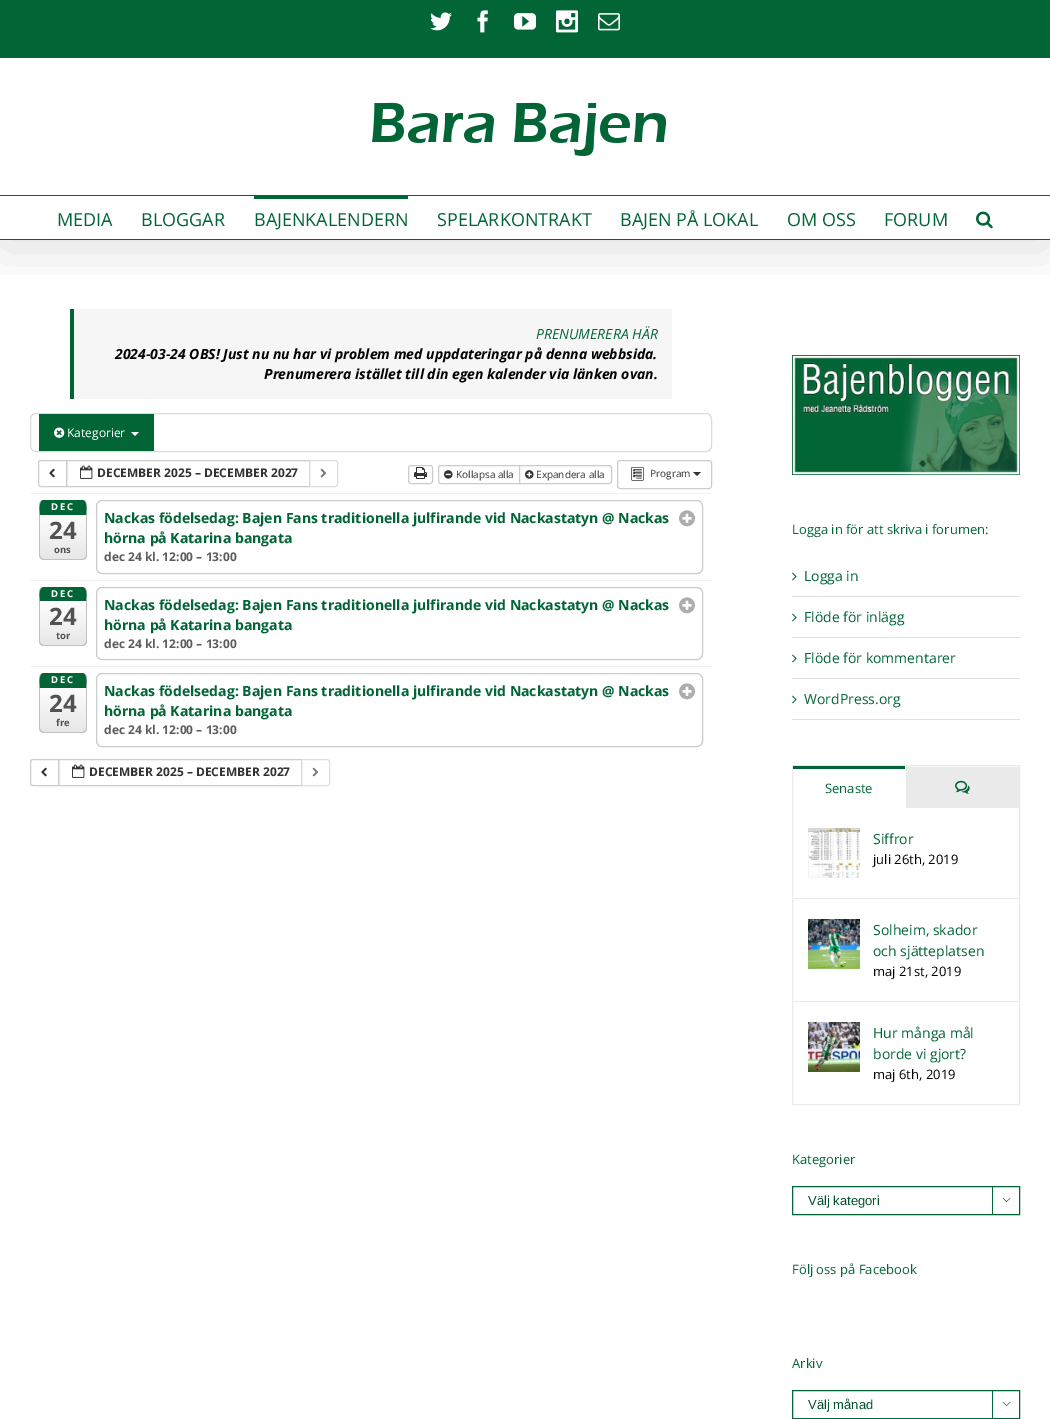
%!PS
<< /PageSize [1050 1419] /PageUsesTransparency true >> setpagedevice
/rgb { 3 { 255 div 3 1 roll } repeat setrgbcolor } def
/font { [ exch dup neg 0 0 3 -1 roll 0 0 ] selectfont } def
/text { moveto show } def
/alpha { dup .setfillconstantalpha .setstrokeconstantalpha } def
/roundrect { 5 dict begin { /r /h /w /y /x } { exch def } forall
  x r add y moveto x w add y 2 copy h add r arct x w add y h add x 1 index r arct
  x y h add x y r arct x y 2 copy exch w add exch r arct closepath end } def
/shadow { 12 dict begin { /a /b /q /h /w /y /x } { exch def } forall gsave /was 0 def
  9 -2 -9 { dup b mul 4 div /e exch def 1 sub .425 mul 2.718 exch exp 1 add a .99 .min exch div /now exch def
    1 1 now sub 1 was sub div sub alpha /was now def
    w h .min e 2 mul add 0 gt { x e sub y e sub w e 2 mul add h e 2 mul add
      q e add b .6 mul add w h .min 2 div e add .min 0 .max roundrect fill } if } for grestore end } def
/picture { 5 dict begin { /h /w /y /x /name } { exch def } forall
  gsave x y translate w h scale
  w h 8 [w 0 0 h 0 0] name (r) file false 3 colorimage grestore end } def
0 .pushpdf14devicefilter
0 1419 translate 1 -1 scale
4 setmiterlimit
255 255 255 rgb
0 0 1050 1419 rectfill
246 246 246 rgb
74 309 598 90 rectfill
2 101 54 rgb
70 309 4 90 rectfill
gsave
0 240 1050 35 rectclip
0 0 0 rgb
2 12 1046 236 0 25 0.14 shadow
grestore
0 0 1050 58 rectfill
(img_01.rgb) 430 12 22 19 picture
(img_02.rgb) 477 10 11 23 picture
(img_03.rgb) 514 13 22 17 picture
(img_04.rgb) 556 10 22 23 picture
(img_05.rgb) 598 13 22 18 picture
0 195 1050 1 rectfill
(img_06.rgb) 372 102 295 54 picture
0 239 1050 1 rectfill
254 196 154 3 rectfill
(img_07.rgb) 976 211 17 18 picture
219 219 219 rgb
30.5 413.5 681 38 5.5 roundrect stroke
2 101 54 rgb
39 414 115 37 rectfill
(img_08.rgb) 54 427 11 11 picture
255 255 255 rgb
131 432 moveto 8 0 rlineto -4 4 rlineto closepath fill
204 204 204 rgb
41 460.5 moveto 25.5 0 rlineto 0 26 rlineto -25.5 0 rlineto -1.5 0 -2.5 -1 -2.5 -2.5 rcurveto 0 -21 rlineto 0 -1.5 1 -2.5 2.5 -2.5 rcurveto closepath stroke
(img_09.rgb) 49 468 6 10 picture
66.5 460.5 243 26 rectstroke
(img_10.rgb) 80 465 13 14 picture
0.65 alpha
255 255 255 rgb
309 460 moveto 26 0 rlineto 1.5 0 3 1.5 3 3 rcurveto 0 21 rlineto 0 1.5 -1.5 3 -3 3 rcurveto -26 0 rlineto closepath fill
204 204 204 rgb
309.5 460.5 moveto 25.5 0 rlineto 1.5 0 2.5 1 2.5 2.5 rcurveto 0 21 rlineto 0 1.5 -1 2.5 -2.5 2.5 rcurveto -25.5 0 rlineto closepath stroke
1 alpha
(img_11.rgb) 320 468 6 10 picture
408.5 465.5 24 18 2.5 roundrect stroke
(img_12.rgb) 414 467 13 12 picture
441 465.5 moveto 78.5 0 rlineto 0 18 rlineto -78.5 0 rlineto -1.5 0 -2.5 -1 -2.5 -2.5 rcurveto 0 -13 rlineto 0 -1.5 1 -2.5 2.5 -2.5 rcurveto closepath stroke
(img_13.rgb) 444 470 9 9 picture
255 255 255 rgb
519.5 465.5 moveto 89.5 0 rlineto 1.5 0 2.5 1 2.5 2.5 rcurveto 0 13 rlineto 0 1.5 -1 2.5 -2.5 2.5 rcurveto -89.5 0 rlineto closepath gsave fill grestore
204 204 204 rgb
stroke
(img_14.rgb) 525 470 9 9 picture
617.5 460.5 94 28 2.5 roundrect stroke
(img_15.rgb) 631 467 14 14 picture
51 51 51 rgb
693 472 moveto 8 0 rlineto -4 4 rlineto closepath fill
241 241 241 rgb
30 493 682 1 rectfill
gsave
39 500 48 60 5 roundrect clip newpath
gsave 40 500 moveto 46 0 rlineto 0 59 rlineto -46 0 rlineto closepath clip newpath
<< /ShadingType 2 /ColorSpace /DeviceRGB /Coords [63 500 63 559] /Extend [true true] /Function << /FunctionType 3 /Domain [0 1] /Functions [<< /FunctionType 2 /Domain [0 1] /C0 [1 1 1] /C1 [1 1 1] /N 1 >> << /FunctionType 2 /Domain [0 1] /C0 [1 1 1] /C1 [0.906 0.906 0.906] /N 1 >>] /Bounds [0.2] /Encode [0 1 0 1] >> >> shfill grestore
grestore
194 194 194 rgb
44 500 moveto 38 0 rlineto 3 0 5 2 5 5 rcurveto 0 50 rlineto 0 3 -2 5 -5 5 rcurveto -38 0 rlineto -3 0 -5 -2 -5 -5 rcurveto 0 -50 rlineto 0 -3 2 -5 5 -5 rcurveto closepath 44 500 moveto 38 0 rlineto 2 0 4 2 4 5 rcurveto 0 50 rlineto 0 2 -2 4 -4 4 rcurveto -38 0 rlineto -2 0 -4 -2 -4 -4 rcurveto 0 -50 rlineto 0 -3 2 -5 4 -5 rcurveto closepath eofill
2 101 54 rgb
44 500 moveto -6 0 -4 12 -4 15 rcurveto 46 0 rlineto 0 -3 2 -15 -4 -15 rcurveto closepath fill
204 204 204 rgb
96.5 500.5 606 73 5.5 roundrect stroke
(img_16.rgb) 679 510 16 17 picture
241 241 241 rgb
30 580 682 1 rectfill
gsave
39 587 48 59 5 roundrect clip newpath
gsave 40 587 moveto 46 0 rlineto 0 58 rlineto -46 0 rlineto closepath clip newpath
<< /ShadingType 2 /ColorSpace /DeviceRGB /Coords [63 587 63 645] /Extend [true true] /Function << /FunctionType 3 /Domain [0 1] /Functions [<< /FunctionType 2 /Domain [0 1] /C0 [1 1 1] /C1 [1 1 1] /N 1 >> << /FunctionType 2 /Domain [0 1] /C0 [1 1 1] /C1 [0.906 0.906 0.906] /N 1 >>] /Bounds [0.21] /Encode [0 1 0 1] >> >> shfill grestore
grestore
194 194 194 rgb
44 587 moveto 38 0 rlineto 3 0 5 2 5 5 rcurveto 0 49 rlineto 0 3 -2 5 -5 5 rcurveto -38 0 rlineto -3 0 -5 -2 -5 -5 rcurveto 0 -49 rlineto 0 -3 2 -5 5 -5 rcurveto closepath 44 587 moveto 38 0 rlineto 2 0 4 2 4 5 rcurveto 0 49 rlineto 0 2 -2 4 -4 4 rcurveto -38 0 rlineto -2 0 -4 -2 -4 -4 rcurveto 0 -49 rlineto 0 -3 2 -5 4 -5 rcurveto closepath eofill
2 101 54 rgb
44 587 moveto -6 0 -4 11 -4 14 rcurveto 46 0 rlineto 0 -3 2 -14 -4 -14 rcurveto closepath fill
204 204 204 rgb
96.5 587.5 606 72 5.5 roundrect stroke
(img_16.rgb) 679 597 16 17 picture
241 241 241 rgb
30 666 682 1 rectfill
gsave
39 673 48 60 5 roundrect clip newpath
gsave 40 673 moveto 46 0 rlineto 0 59 rlineto -46 0 rlineto closepath clip newpath
<< /ShadingType 2 /ColorSpace /DeviceRGB /Coords [63 673 63 732] /Extend [true true] /Function << /FunctionType 3 /Domain [0 1] /Functions [<< /FunctionType 2 /Domain [0 1] /C0 [1 1 1] /C1 [1 1 1] /N 1 >> << /FunctionType 2 /Domain [0 1] /C0 [1 1 1] /C1 [0.906 0.906 0.906] /N 1 >>] /Bounds [0.2] /Encode [0 1 0 1] >> >> shfill grestore
grestore
194 194 194 rgb
44 673 moveto 38 0 rlineto 3 0 5 2 5 5 rcurveto 0 50 rlineto 0 3 -2 5 -5 5 rcurveto -38 0 rlineto -3 0 -5 -2 -5 -5 rcurveto 0 -50 rlineto 0 -3 2 -5 5 -5 rcurveto closepath 44 673 moveto 38 0 rlineto 2 0 4 2 4 5 rcurveto 0 50 rlineto 0 2 -2 4 -4 4 rcurveto -38 0 rlineto -2 0 -4 -2 -4 -4 rcurveto 0 -50 rlineto 0 -3 2 -5 4 -5 rcurveto closepath eofill
2 101 54 rgb
44 673 moveto -6 0 -4 12 -4 15 rcurveto 46 0 rlineto 0 -3 2 -15 -4 -15 rcurveto closepath fill
204 204 204 rgb
96.5 673.5 606 73 5.5 roundrect stroke
(img_16.rgb) 679 683 16 17 picture
33 759.5 moveto 25.5 0 rlineto 0 26 rlineto -25.5 0 rlineto -1.5 0 -2.5 -1 -2.5 -2.5 rcurveto 0 -21 rlineto 0 -1.5 1 -2.5 2.5 -2.5 rcurveto closepath stroke
(img_09.rgb) 41 767 6 10 picture
58.5 759.5 243 26 rectstroke
(img_10.rgb) 72 764 13 14 picture
0.65 alpha
255 255 255 rgb
301 759 moveto 26 0 rlineto 1.5 0 3 1.5 3 3 rcurveto 0 21 rlineto 0 1.5 -1.5 3 -3 3 rcurveto -26 0 rlineto closepath fill
204 204 204 rgb
301.5 759.5 moveto 25.5 0 rlineto 1.5 0 2.5 1 2.5 2.5 rcurveto 0 21 rlineto 0 1.5 -1 2.5 -2.5 2.5 rcurveto -25.5 0 rlineto closepath stroke
1 alpha
(img_11.rgb) 312 767 6 10 picture
(img_17.rgb) 792 355 228 120 picture
224 222 222 rgb
792 596 228 1 rectfill
(img_18.rgb) 792 572 5 9 picture
792 637 228 1 rectfill
(img_18.rgb) 792 613 5 9 picture
792 678 228 1 rectfill
(img_18.rgb) 792 654 5 9 picture
792 719 228 1 rectfill
(img_18.rgb) 792 695 5 9 picture
235 234 234 rgb
792.5 765.5 227 339 rectstroke
2 101 54 rgb
793 766 112 3 rectfill
235 234 234 rgb
906 767 113 41 rectfill
(img_19.rgb) 955 780 15 14 picture
793 898 226 1 rectfill
(img_20.rgb) 808 828 52 50 picture
793 1001 226 1 rectfill
(img_21.rgb) 808 919 52 50 picture
(img_22.rgb) 808 1022 52 50 picture
2 101 54 rgb
792.5 1186.5 227 28 rectstroke
992 1187 1 27 rectfill
(img_23.rgb) 1002 1197 9 5 picture
792.5 1390.5 227 28 rectstroke
992 1391 1 27 rectfill
(img_23.rgb) 1002 1401 9 5 picture
/OpenSans-Regular 18 font
(MEDIA) 57 226 text
(BLOGGAR) 141 226 text
(BAJENKALENDERN) 254 226 text
(SPELARKONTRAKT) 437 226 text
(BAJEN PÅ LOKAL) 620 226 text
(OM OSS) 787 226 text
(FORUM) 884 226 text
/OpenSans-Italic 14 font
(PRENUMERERA HÄR) 536 339 text
/OpenSans-BoldItalic 14 font
0 0 0 rgb
(2024-03-24 OBS! Just nu nu har vi problem med uppdateringar på denna webbsida.) 115 359 text
(Prenumerera istället till din egen kalender via länken ovan.) 264 379 text
/OpenSans-Regular 12 font
255 255 255 rgb
(Kategorier) 67 437 text
/OpenSans-Bold 12 font
51 51 51 rgb
(DECEMBER 2025 – DECEMBER 2027) 97 477 text
/OpenSans-Regular 10 font
(Kollapsa alla) 456 478 text
(Expandera alla) 536 478 text
(Program) 650 477 text
/OpenSans-Bold 9.5 font
255 255 255 rgb
51 510 moveto 2 0 (DEC) ashow
/OpenSans-Bold 24 font
82 82 82 rgb
(24) 49 539 text
/OpenSans-Bold 9.5 font
(ons) 54 553 text
/OpenSans-Bold 14 font
2 101 54 rgb
(Nackas födelsedag: Bajen Fans traditionella julfirande vid Nackastatyn @ Nackas) 104 523 text
(hörna på Katarina bangata) 104 543 text
/OpenSans-Bold 12 font
92 92 92 rgb
(dec 24 kl. 12:00 – 13:00) 104 561 text
/OpenSans-Bold 9.5 font
255 255 255 rgb
51 597 moveto 2 0 (DEC) ashow
/OpenSans-Bold 24 font
82 82 82 rgb
(24) 49 625 text
/OpenSans-Bold 9.5 font
(tor) 56 639 text
/OpenSans-Bold 14 font
2 101 54 rgb
(Nackas födelsedag: Bajen Fans traditionella julfirande vid Nackastatyn @ Nackas) 104 610 text
(hörna på Katarina bangata) 104 630 text
/OpenSans-Bold 12 font
92 92 92 rgb
(dec 24 kl. 12:00 – 13:00) 104 648 text
/OpenSans-Bold 9.5 font
255 255 255 rgb
51 683 moveto 2 0 (DEC) ashow
/OpenSans-Bold 24 font
82 82 82 rgb
(24) 49 712 text
/OpenSans-Bold 9.5 font
(fre) 56 726 text
/OpenSans-Bold 14 font
2 101 54 rgb
(Nackas födelsedag: Bajen Fans traditionella julfirande vid Nackastatyn @ Nackas) 104 696 text
(hörna på Katarina bangata) 104 716 text
/OpenSans-Bold 12 font
92 92 92 rgb
(dec 24 kl. 12:00 – 13:00) 104 734 text
51 51 51 rgb
(DECEMBER 2025 – DECEMBER 2027) 89 776 text
/OpenSans-Regular 13 font
2 101 54 rgb
(Logga in för att skriva i forumen:) 792 534 text
/OpenSans-Regular 14 font
(Logga in) 804 581 text
(Flöde för inlägg) 804 622 text
(Flöde för kommentarer) 804 663 text
(WordPress.org) 804 704 text
/OpenSans-Regular 13 font
(Senaste) 825 793 text
/OpenSans-Regular 14 font
(Siffror) 873 844 text
/OpenSans-Regular 13 font
0 0 0 rgb
(juli 26th, 2019) 873 864 text
/OpenSans-Regular 14 font
2 101 54 rgb
(Solheim, skador) 873 935 text
(och sjätteplatsen) 873 956 text
/OpenSans-Regular 13 font
0 0 0 rgb
(maj 21st, 2019) 873 976 text
/OpenSans-Regular 14 font
2 101 54 rgb
(Hur många mål) 873 1038 text
(borde vi gjort?) 873 1059 text
/OpenSans-Regular 13 font
0 0 0 rgb
(maj 6th, 2019) 873 1079 text
2 101 54 rgb
(Kategorier) 792 1164 text
/LiberationSans-Regular 13 font
1 81 44 rgb
(Välj kategori) 808 1205 text
/OpenSans-Regular 13 font
2 101 54 rgb
(Följ oss på Facebook) 792 1274 text
(Arkiv) 792 1368 text
/LiberationSans-Regular 13 font
1 81 44 rgb
(Välj månad) 808 1409 text
.poppdf14devicefilter showpage
